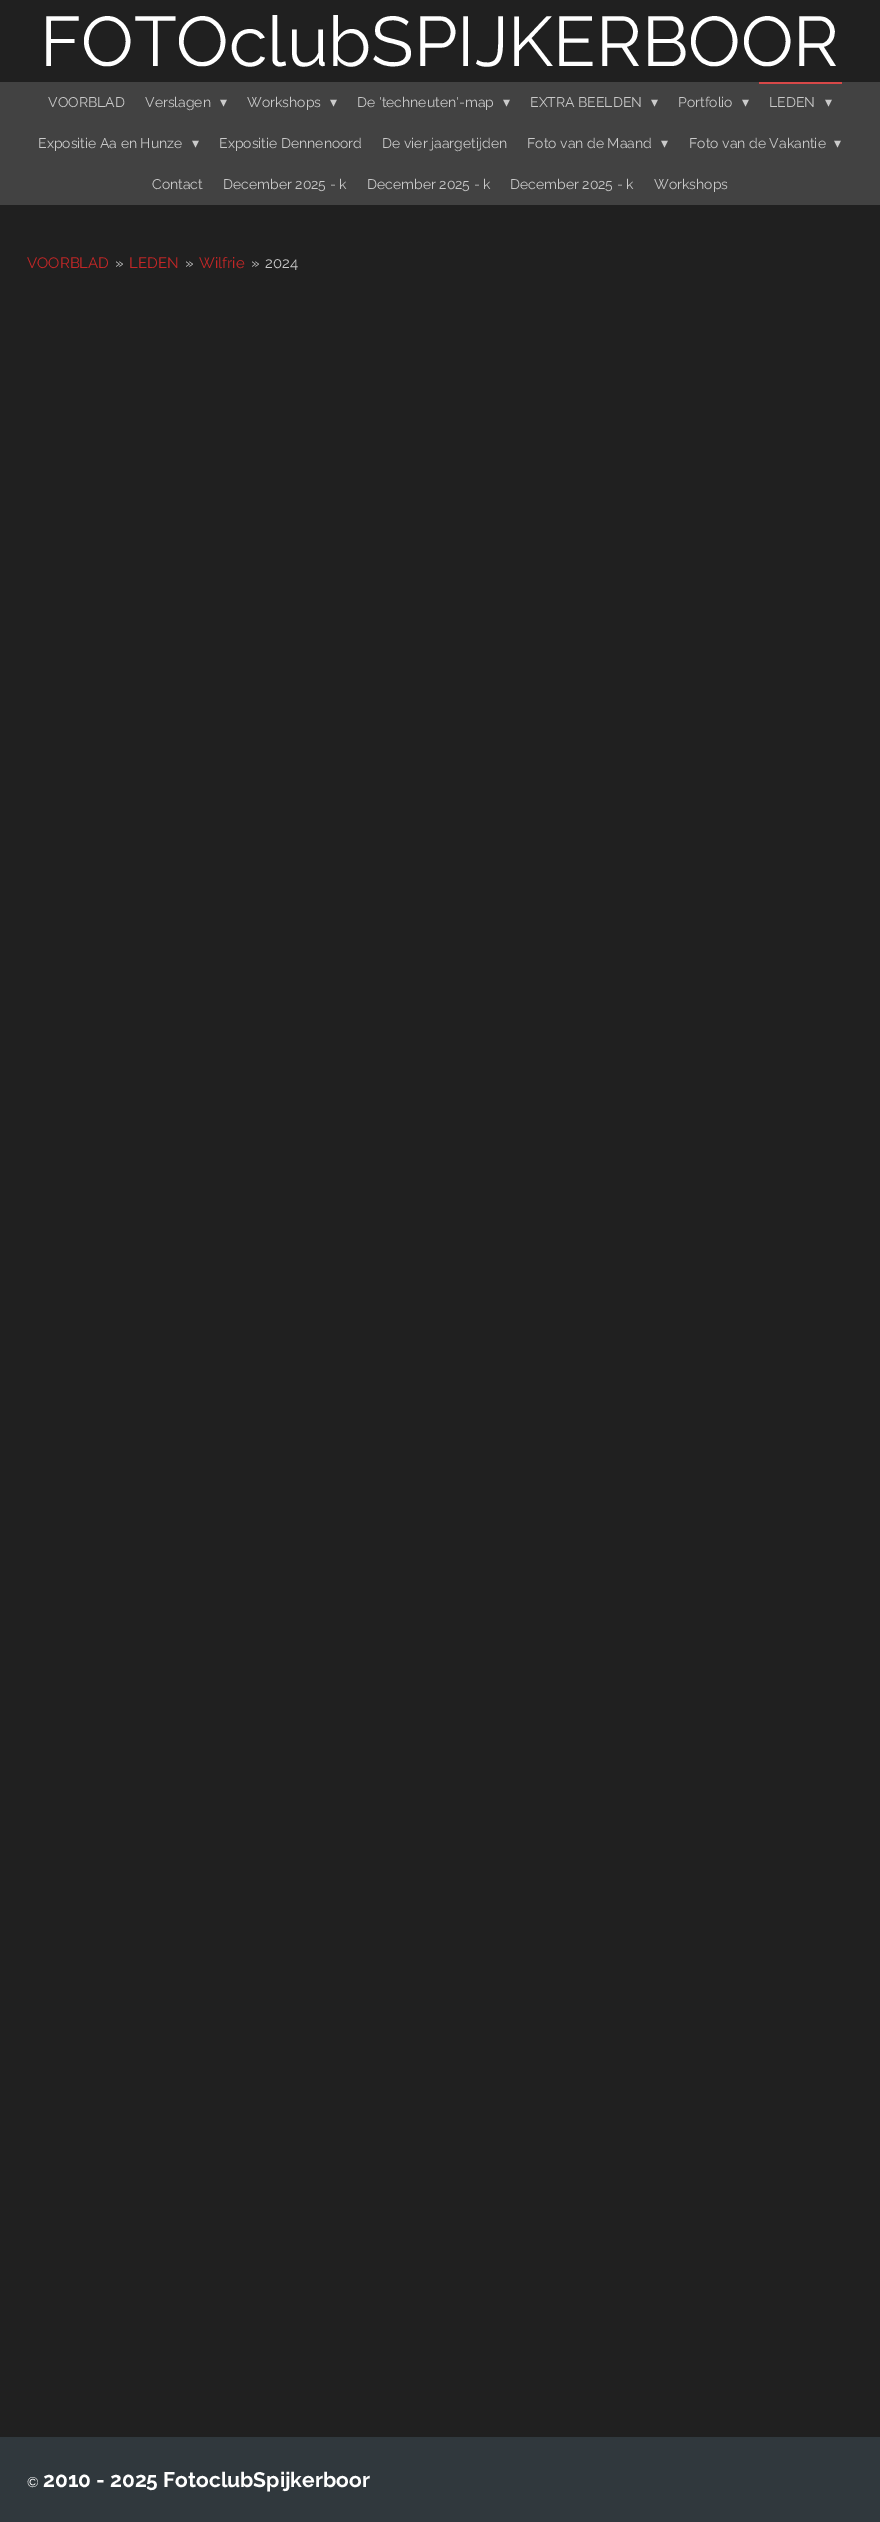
%!PS
<< /PageSize [880 2522] >> setpagedevice
/rgb { 3 { 255 div 3 1 roll } repeat setrgbcolor } def
/font { [ exch dup neg 0 0 3 -1 roll 0 0 ] selectfont } def
/text { moveto show } def
0 2522 translate 1 -1 scale
4 setmiterlimit
32 32 32 rgb
0 0 880 2522 rectfill
66 66 66 rgb
0 82 880 123 rectfill
215 72 72 rgb
759 82 83 2 rectfill
48 56 61 rgb
0 2437 880 85 rectfill
/Raleway-Regular 70 font
255 255 255 rgb
(FOTOclubSPIJKERBOOR) 40 66 text
/Raleway-Regular 14 font
202 202 202 rgb
(VOORBLAD) 48 107 text
(Verslagen) 145 107 text
/DejaVuSans-Regular 14 font
(▾) 220 107 text
/Raleway-Regular 14 font
(Workshops) 247 107 text
/DejaVuSans-Regular 14 font
(▾) 330 107 text
/Raleway-Regular 14 font
(De 'techneuten'-map) 357 107 text
/DejaVuSans-Regular 14 font
(▾) 503 107 text
/Raleway-Regular 14 font
(EXTRA BEELDEN) 530 107 text
/DejaVuSans-Regular 14 font
(▾) 651 107 text
/Raleway-Regular 14 font
(Portfolio) 678 107 text
/DejaVuSans-Regular 14 font
(▾) 742 107 text
/Raleway-Regular 14 font
(LEDEN) 769 107 text
/DejaVuSans-Regular 14 font
(▾) 825 107 text
/Raleway-Regular 14 font
(Expositie Aa en Hunze) 38 148 text
/DejaVuSans-Regular 14 font
(▾) 192 148 text
/Raleway-Regular 14 font
(Expositie Dennenoord) 219 148 text
(De vier jaargetijden) 382 148 text
(Foto van de Maand) 527 148 text
/DejaVuSans-Regular 14 font
(▾) 661 148 text
/Raleway-Regular 14 font
(Foto van de Vakantie) 689 148 text
/DejaVuSans-Regular 14 font
(▾) 834 148 text
/Raleway-Regular 14 font
(Contact) 152 189 text
(December 2025 - k) 223 189 text
(December 2025 - k) 367 189 text
(December 2025 - k) 510 189 text
(Workshops) 654 189 text
/Raleway-Regular 15 font
196 39 39 rgb
(VOORBLAD) 27 268 text
202 202 202 rgb
(») 115 268 text
196 39 39 rgb
(LEDEN) 129 268 text
202 202 202 rgb
(») 185 268 text
196 39 39 rgb
(Wilfrie) 199 268 text
202 202 202 rgb
(») 251 268 text
(2024) 265 268 text
/Raleway-Regular 14 font
255 255 255 rgb
(©) 27 2487 text
/Raleway-Bold 21 font
(2010 - 2025 FotoclubSpijkerboor) 43 2487 text
showpage
